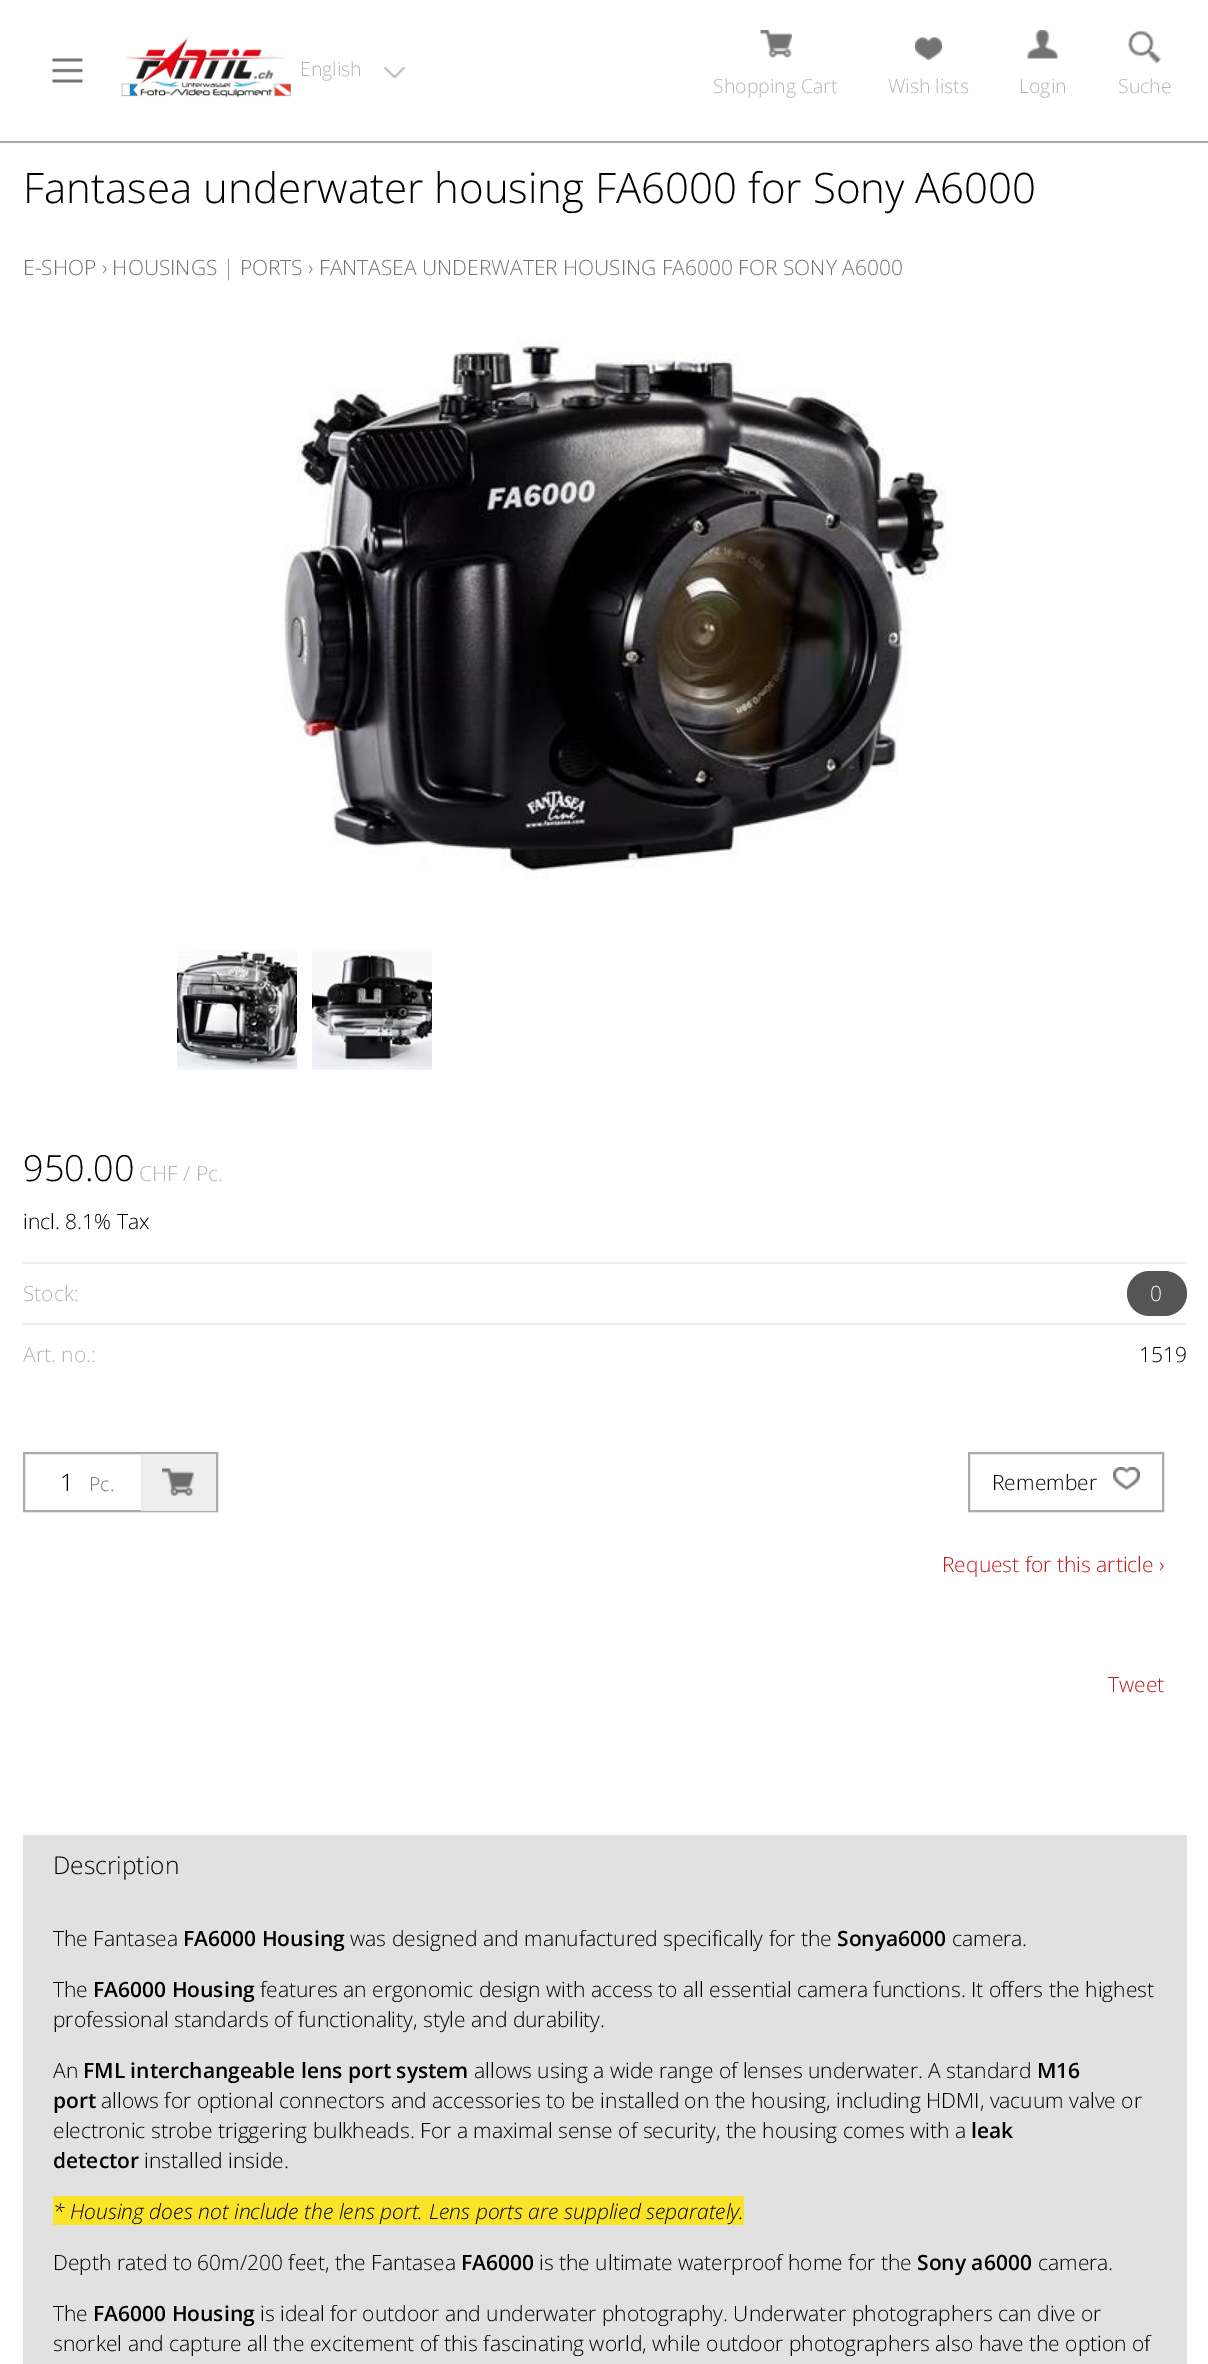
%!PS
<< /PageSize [1208 2364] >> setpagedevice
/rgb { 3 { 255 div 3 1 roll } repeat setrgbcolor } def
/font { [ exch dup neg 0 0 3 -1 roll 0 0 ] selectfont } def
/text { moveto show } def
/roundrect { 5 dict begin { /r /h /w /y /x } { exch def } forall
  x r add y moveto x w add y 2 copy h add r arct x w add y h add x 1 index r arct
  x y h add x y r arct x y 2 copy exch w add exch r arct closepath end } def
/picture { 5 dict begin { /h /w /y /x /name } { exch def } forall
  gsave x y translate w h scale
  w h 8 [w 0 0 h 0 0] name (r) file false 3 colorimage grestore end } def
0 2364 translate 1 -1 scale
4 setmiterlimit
255 255 255 rgb
0 0 1208 2364 rectfill
(img_01.rgb) 384 67 21 12 picture
(img_02.rgb) 1128 30 33 34 picture
(img_03.rgb) 121 38 170 60 picture
170 170 170 rgb
0 141 1208 2 rectfill
(img_04.rgb) 52 58 31 25 picture
(img_05.rgb) 760 30 32 28 picture
(img_06.rgb) 915 37 27 23 picture
(img_07.rgb) 1027 30 31 29 picture
(img_08.rgb) 283 340 663 540 picture
(img_09.rgb) 177 950 120 120 picture
(img_10.rgb) 312 949 120 121 picture
238 238 238 rgb
23 1262 1164 2 rectfill
85 85 85 rgb
1127 1271 60 45 22.5 roundrect fill
238 238 238 rgb
23 1323 1164 2 rectfill
170 170 170 rgb
2 setlinewidth
24 1453 193 58 rectstroke
238 238 238 rgb
141 1454 75 57 rectfill
(img_11.rgb) 162 1468 32 28 picture
170 170 170 rgb
969 1453 194 58 rectstroke
(img_12.rgb) 1113 1467 27 23 picture
225 225 225 rgb
23 1835 1164 529 rectfill
251 227 42 rgb
53 2196 691 29 rectfill
/OpenSans-Light 19.5 font
181 181 181 rgb
(English) 300 76 text
(Suche) 1118 93 text
(Shopping Cart) 713 93 text
(Wish lists) 888 93 text
(Login) 1019 93 text
/OpenSans-Light 42 font
0 0 0 rgb
(Fantasea underwater housing FA6000 for Sony A6000) 23 203 text
/OpenSans-Light 21 font
116 116 116 rgb
(E-SHOP › HOUSINGS | PORTS › FANTASEA UNDERWATER HOUSING FA6000 FOR SONY A6000) 23 275 text
/OpenSans-Light 36 font
0 0 0 rgb
(950.00) 23 1181 text
/OpenSans-Light 21 font
181 181 181 rgb
(CHF / Pc.) 139 1181 text
0 0 0 rgb
(incl. 8.1% Tax) 23 1229 text
181 181 181 rgb
(Stock:) 23 1301 text
255 255 255 rgb
(0) 1150 1301 text
181 181 181 rgb
(Art. no.:) 23 1362 text
0 0 0 rgb
(1519) 1139 1362 text
/OpenSans-Light 24 font
(1) 60 1491 text
/OpenSans-Light 19.5 font
116 116 116 rgb
(Pc.) 89 1491 text
/OpenSans-Light 21 font
0 0 0 rgb
(Remember) 992 1490 text
195 24 28 rgb
(Request for this article ›) 942 1572 text
(Tweet) 1108 1692 text
/OpenSans-Light 24.5 font
0 0 0 rgb
(Description) 53 1874 text
/OpenSans-Light 21 font
(The Fantasea) 53 1946 text
/OpenSans-SemiBold 21 font
(FA6000 Housing) 183 1946 text
/OpenSans-Light 21 font
(was designed and manufactured specifically for the) 350 1946 text
/OpenSans-SemiBold 21 font
(Sonya6000) 837 1946 text
/OpenSans-Light 21 font
(camera.) 952 1946 text
(The) 53 1997 text
/OpenSans-SemiBold 21 font
(FA6000 Housing) 93 1997 text
/OpenSans-Light 21 font
(features an ergonomic design with access to all essential camera functions. It offers the highest) 260 1997 text
(professional standards of functionality, style and durability.) 53 2027 text
(An) 53 2078 text
/OpenSans-SemiBold 21 font
(FML interchangeable lens port system) 83 2078 text
/OpenSans-Light 21 font
(allows using a wide range of lenses underwater. A standard) 474 2078 text
/OpenSans-SemiBold 21 font
(M16) 1037 2078 text
(port) 53 2108 text
/OpenSans-Light 21 font
(allows for optional connectors and accessories to be installed on the housing, including HDMI, vacuum valve or) 101 2108 text
(electronic strobe triggering bulkheads. For a maximal sense of security, the housing comes with a) 53 2138 text
/OpenSans-SemiBold 21 font
(leak) 971 2138 text
(detector) 53 2168 text
/OpenSans-Light 21 font
(installed inside.) 144 2168 text
/OpenSans-LightItalic 21 font
(* Housing does not include the lens port. Lens ports are supplied separately.) 53 2219 text
/OpenSans-Light 21 font
(Depth rated to 60m/200 feet, the Fantasea) 53 2270 text
/OpenSans-SemiBold 21 font
(FA6000) 461 2270 text
/OpenSans-Light 21 font
(is the ultimate waterproof home for the) 539 2270 text
/OpenSans-SemiBold 21 font
(Sony a6000) 917 2270 text
/OpenSans-Light 21 font
(camera.) 1038 2270 text
(The) 53 2321 text
/OpenSans-SemiBold 21 font
(FA6000 Housing) 93 2321 text
/OpenSans-Light 21 font
(is ideal for outdoor and underwater photography. Underwater photographers can dive or) 260 2321 text
(snorkel and capture all the excitement of this fascinating world, while outdoor photographers also have the option of) 53 2351 text
showpage
